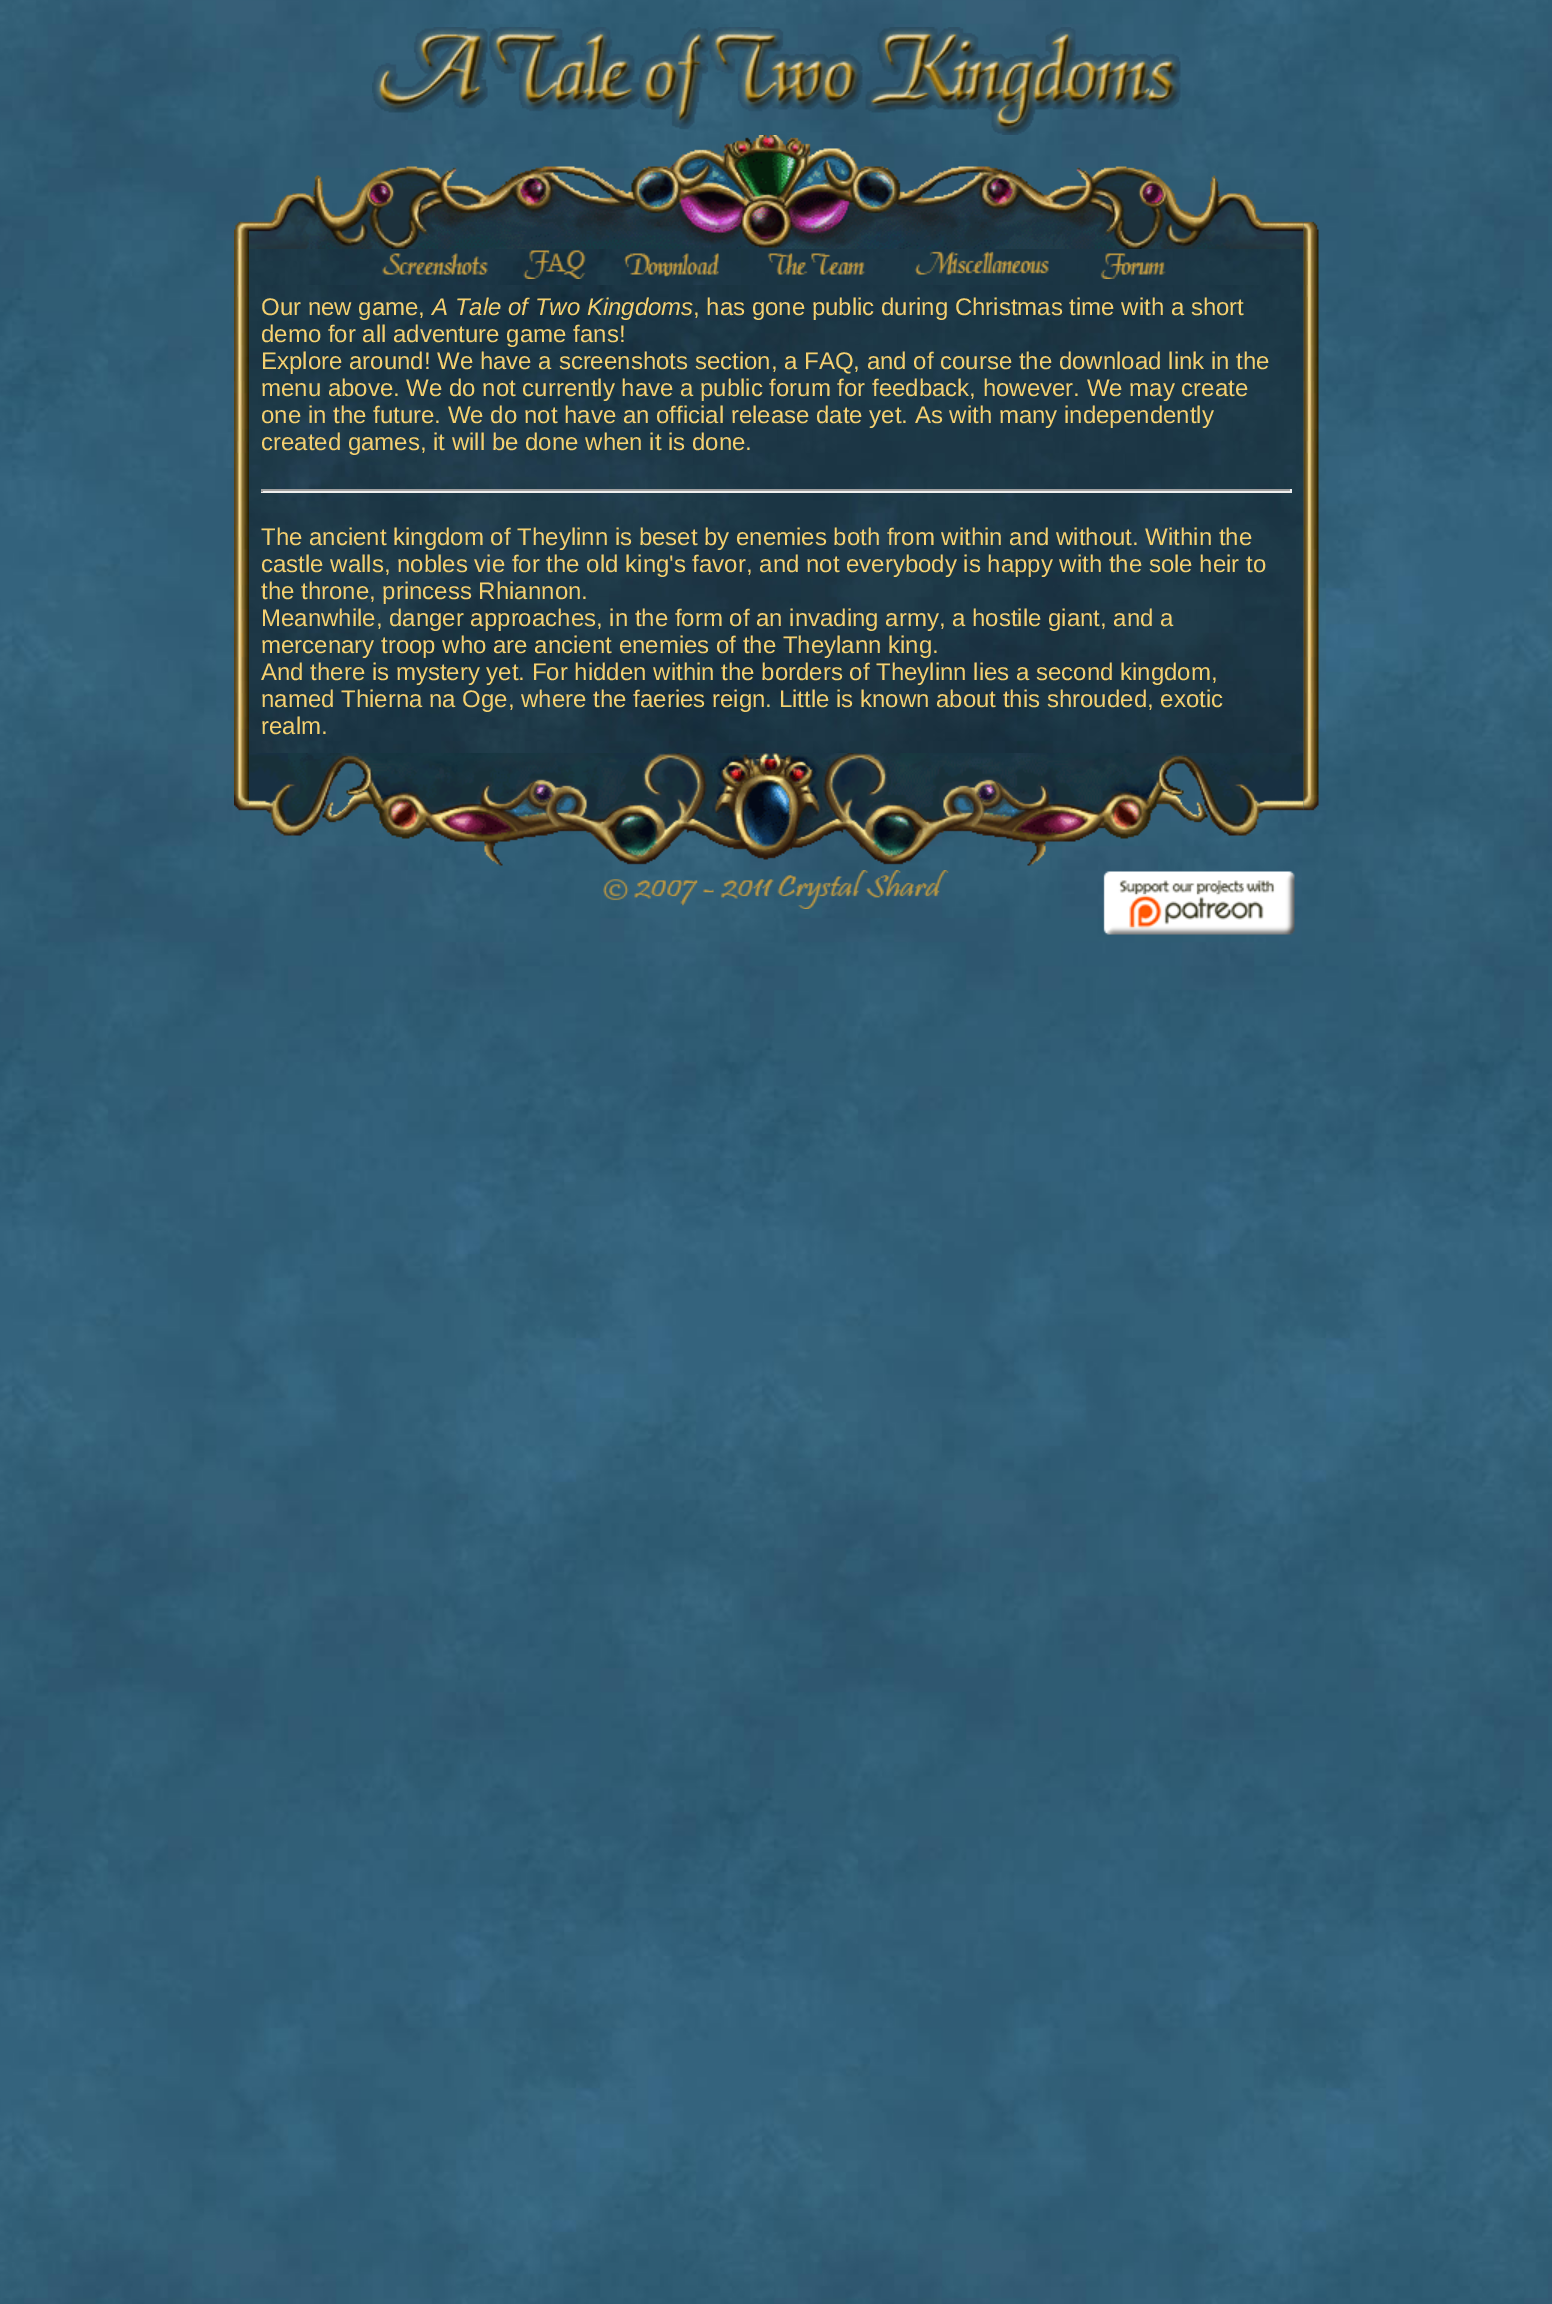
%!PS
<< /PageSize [1552 2304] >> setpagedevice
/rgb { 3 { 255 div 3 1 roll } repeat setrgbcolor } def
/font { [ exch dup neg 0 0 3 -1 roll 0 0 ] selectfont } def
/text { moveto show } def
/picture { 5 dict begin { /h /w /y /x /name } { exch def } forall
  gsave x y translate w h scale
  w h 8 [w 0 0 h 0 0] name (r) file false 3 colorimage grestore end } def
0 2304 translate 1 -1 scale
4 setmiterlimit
255 255 255 rgb
0 0 1552 2304 rectfill
(img_01.rgb) 0 0 1552 2304 picture
(img_02.rgb) 372 27 809 108 picture
(img_03.rgb) 234 221 15 28 picture
(img_04.rgb) 249 135 1055 114 picture
(img_05.rgb) 1303 221 16 28 picture
(img_06.rgb) 234 249 15 36 picture
(img_07.rgb) 249 249 1055 36 picture
(img_08.rgb) 382 253 106 23 picture
(img_09.rgb) 523 250 63 29 picture
(img_10.rgb) 623 253 96 24 picture
(img_11.rgb) 767 253 99 22 picture
(img_12.rgb) 914 251 135 24 picture
(img_13.rgb) 1100 253 66 26 picture
(img_14.rgb) 1303 249 16 36 picture
(img_15.rgb) 234 285 15 468 picture
(img_16.rgb) 249 285 1055 468 picture
159 159 159 rgb
261 489 1031 2 rectfill
238 238 238 rgb
1290 489 2 3 rectfill
261 491 1031 2 rectfill
159 159 159 rgb
261 489 2 3 rectfill
(img_17.rgb) 1303 285 16 468 picture
(img_18.rgb) 234 753 15 58 picture
(img_19.rgb) 249 753 1055 113 picture
(img_20.rgb) 1303 753 16 58 picture
(img_21.rgb) 603 870 347 39 picture
(img_22.rgb) 1103 871 192 64 picture
/LiberationSans-Regular 24 font
244 208 112 rgb
(Our new game,) 261 315 text
/LiberationSans-Italic 24 font
(A Tale of Two Kingdoms) 432 315 text
/LiberationSans-Regular 24 font
(, has gone public during Christmas time with a short) 693 315 text
(demo for all adventure game fans!) 261 342 text
(Explore around! We have a screenshots section, a FAQ, and of course the download link in the) 261 369 text
(menu above. We do not currently have a public forum for feedback, however. We may create) 261 396 text
(one in the future. We do not have an official release date yet. As with many independently) 261 423 text
(created games, it will be done when it is done.) 261 450 text
(The ancient kingdom of Theylinn is beset by enemies both from within and without. Within the) 261 545 text
(castle walls, nobles vie for the old king's favor, and not everybody is happy with the sole heir to) 261 572 text
(the throne, princess Rhiannon.) 261 599 text
(Meanwhile, danger approaches, in the form of an invading army, a hostile giant, and a) 261 626 text
(mercenary troop who are ancient enemies of the Theylann king.) 261 653 text
(And there is mystery yet. For hidden within the borders of Theylinn lies a second kingdom,) 261 680 text
(named Thierna na Oge, where the faeries reign. Little is known about this shrouded, exotic) 261 707 text
(realm.) 261 734 text
showpage
